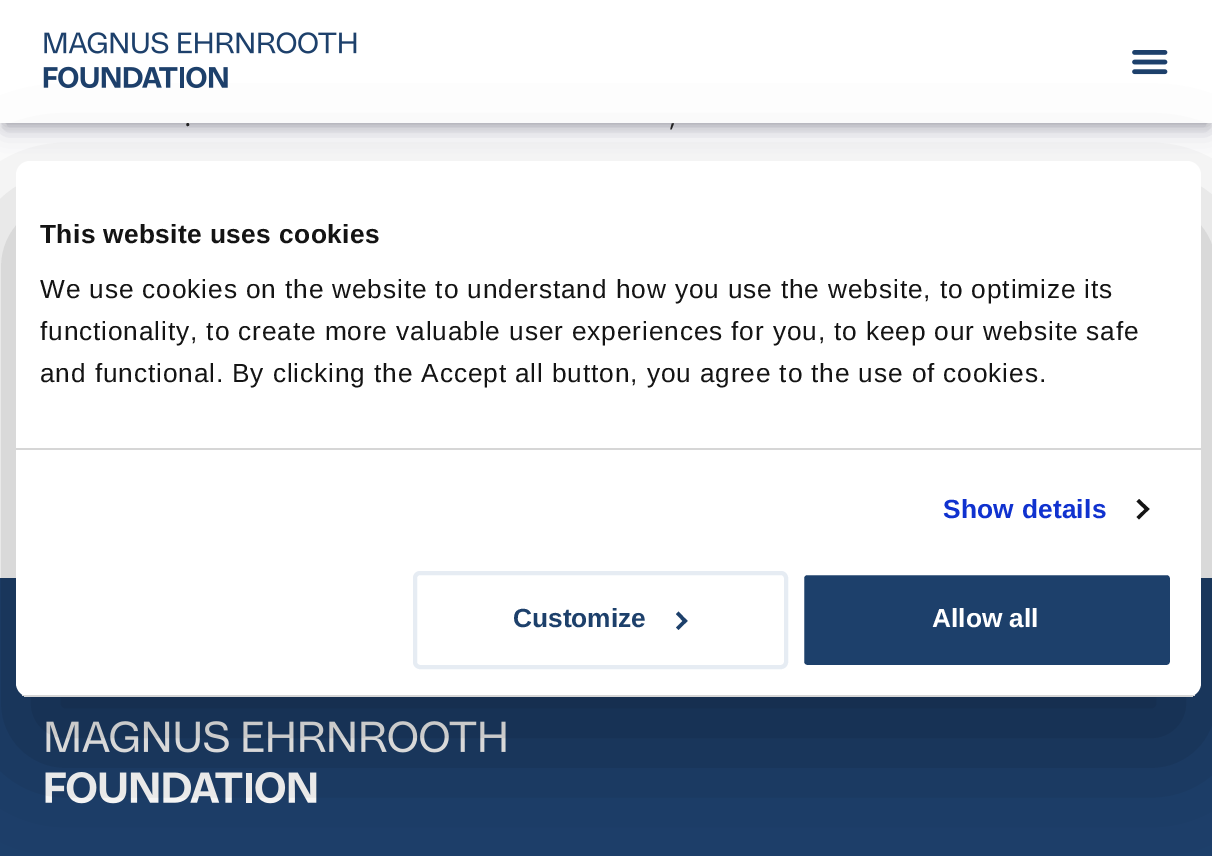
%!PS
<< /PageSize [1212 856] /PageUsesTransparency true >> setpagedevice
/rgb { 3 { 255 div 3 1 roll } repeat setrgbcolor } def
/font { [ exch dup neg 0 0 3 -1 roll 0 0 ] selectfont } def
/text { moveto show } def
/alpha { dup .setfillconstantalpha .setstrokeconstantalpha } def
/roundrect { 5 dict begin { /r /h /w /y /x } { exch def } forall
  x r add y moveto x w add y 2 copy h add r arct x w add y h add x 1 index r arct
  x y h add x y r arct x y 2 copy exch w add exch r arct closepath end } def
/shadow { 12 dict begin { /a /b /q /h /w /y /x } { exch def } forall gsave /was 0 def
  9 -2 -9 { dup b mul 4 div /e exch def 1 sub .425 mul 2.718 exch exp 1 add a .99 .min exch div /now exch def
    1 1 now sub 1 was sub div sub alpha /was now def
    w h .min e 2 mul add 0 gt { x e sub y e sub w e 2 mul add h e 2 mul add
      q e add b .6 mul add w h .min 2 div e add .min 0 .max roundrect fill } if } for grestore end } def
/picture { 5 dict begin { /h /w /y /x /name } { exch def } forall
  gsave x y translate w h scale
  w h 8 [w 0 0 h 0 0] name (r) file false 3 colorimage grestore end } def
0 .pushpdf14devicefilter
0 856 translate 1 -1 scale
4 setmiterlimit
255 255 255 rgb
0 0 1212 856 rectfill
0 0 0 rgb
5 11 1203 112 0 6 0.3 shadow
50 50 93 rgb
4 14 1205 116 0 10.5 0.25 shadow
29 64 107 rgb
0 578 1212 278 rectfill
(img_03.rgb) 45 721 461 83 picture
/DMSans-Regular 28 font
33 33 33 rgb
(.) 185 126 text
255 255 255 rgb
0 0 1212 123 rectfill
(img_02.rgb) 1132 50 36 25 picture
(img_01.rgb) 43 32 314 57 picture
33 33 33 rgb
(,) 670 126 text
0 0 0 rgb
16 217 1185 536 14 59.5 0.3 shadow
255 255 255 rgb
16 161 1185 536 14 roundrect fill
214 214 214 rgb
16 448 1185 2 rectfill
/LiberationSans-Bold 26.25 font
20 20 20 rgb
40 243 moveto 0.4 0 (This website uses cookies) ashow
/LiberationSans-Regular 26.25 font
40 298 moveto 0.88 0 (We use cookies on the website to understand how you use the website, to optimize its) ashow
40 340 moveto 0.88 0 (functionality, to create more valuable user experiences for you, to keep our website safe) ashow
40 382 moveto 0.88 0 (and functional. By clicking the Accept all button, you agree to the use of cookies.) ashow
/LiberationSans-Bold 26.25 font
16 50 207 rgb
943 518 moveto 0.25 0 (Show details) ashow
20 20 20 rgb
1139 499 moveto 10.5 10 rlineto -2.5 2.5 rlineto -10.5 -10 rlineto closepath fill
1147 507 moveto 2.5 2 rlineto -10.5 10.5 rlineto -2.5 -2.5 rlineto closepath fill
gsave
16 161 1185 536 14 roundrect clip newpath
214 214 214 rgb
16 695 1185 2 rectfill
grestore
230 236 243 rgb
4 setlinewidth
415 573 371 94 5 roundrect stroke
29 64 107 rgb
(Customize) 513 627 text
678.5 611.5 moveto 9 9.5 rlineto -2.5 2.5 rlineto -9 -9.5 rlineto closepath fill
685 618.5 moveto 2.5 2.5 rlineto -9 9 rlineto -2.5 -2.5 rlineto closepath fill
802 573 370 94 5 roundrect gsave fill grestore
255 255 255 rgb
stroke
(Allow all) 932 627 text
.poppdf14devicefilter showpage
